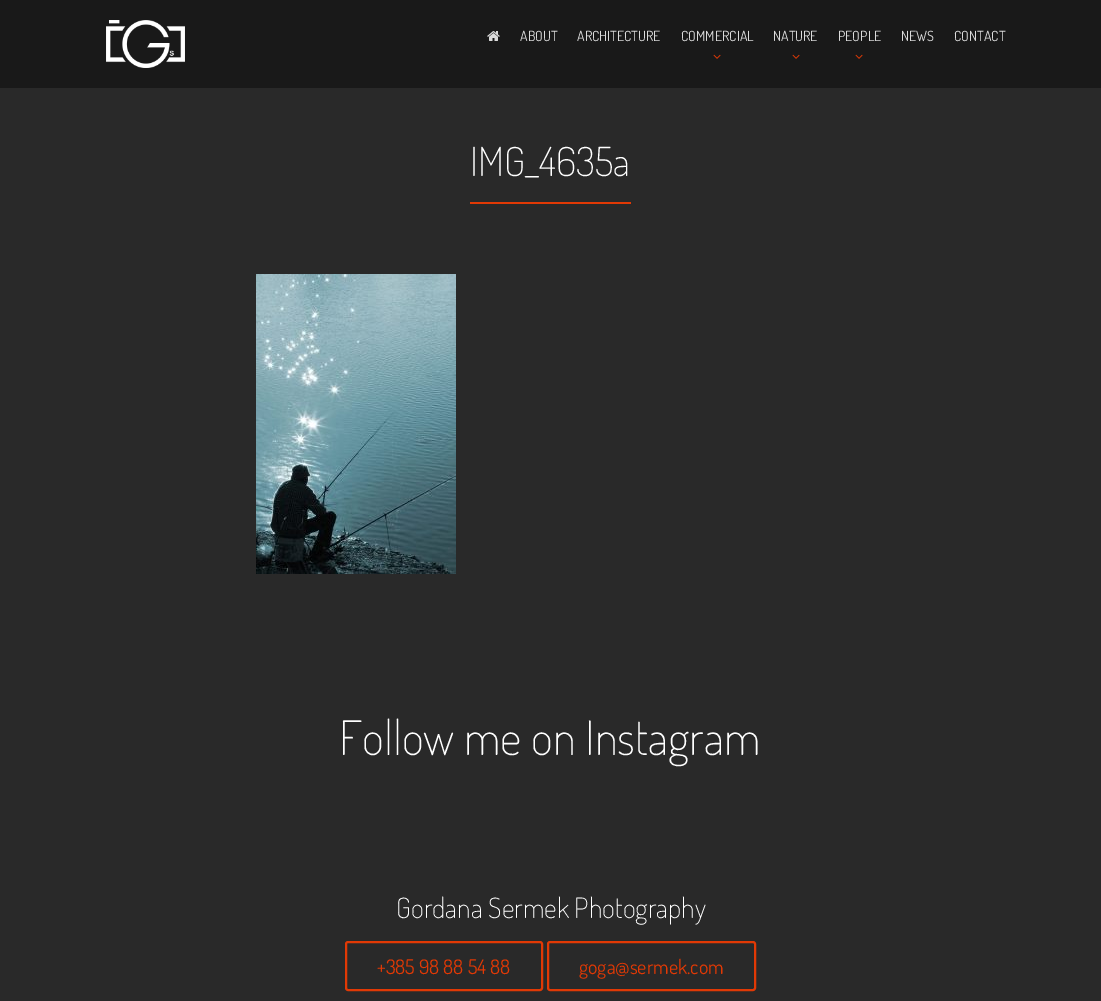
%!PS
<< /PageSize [1101 1001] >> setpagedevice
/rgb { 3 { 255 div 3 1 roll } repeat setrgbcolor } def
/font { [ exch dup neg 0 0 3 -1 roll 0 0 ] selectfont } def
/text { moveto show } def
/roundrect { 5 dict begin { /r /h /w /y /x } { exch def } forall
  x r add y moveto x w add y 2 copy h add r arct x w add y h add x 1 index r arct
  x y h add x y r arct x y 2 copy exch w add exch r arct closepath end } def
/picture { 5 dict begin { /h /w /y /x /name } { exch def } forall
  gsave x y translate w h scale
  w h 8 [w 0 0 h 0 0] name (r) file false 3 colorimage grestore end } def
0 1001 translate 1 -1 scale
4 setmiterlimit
41 41 41 rgb
0 0 1101 1001 rectfill
25 25 25 rgb
0 0 1101 88 rectfill
(img_01.rgb) 106 20 79 48 picture
(img_02.rgb) 487 31 13 10 picture
(img_03.rgb) 713 54 8 5 picture
(img_03.rgb) 792 54 8 5 picture
(img_03.rgb) 855 54 8 5 picture
225 57 5 rgb
470 202 161 2 rectfill
(img_04.rgb) 256 274 200 300 picture
2 setlinewidth
346 942 196 48 2 roundrect stroke
548 942 207 48 2 roundrect stroke
/Dosis-Regular 14 font
220 220 220 rgb
(ABOUT) 520 41 text
(ARCHITECTURE) 577 41 text
(COMMERCIAL) 681 41 text
(NATURE) 773 41 text
(PEOPLE) 838 41 text
(NEWS) 901 41 text
(CONTACT) 954 41 text
/Dosis-ExtraLight 40 font
255 255 255 rgb
(IMG_4635a) 470 176 text
/Dosis-ExtraLight 47.5 font
(Follow me on Instagram) 339 755 text
/Dosis-ExtraLight 28 font
(Gordana Sermek Photography) 396 918 text
/Dosis-Regular 20 font
225 57 5 rgb
(+385 98 88 54 88) 377 974 text
(goga@sermek.com) 579 974 text
showpage
